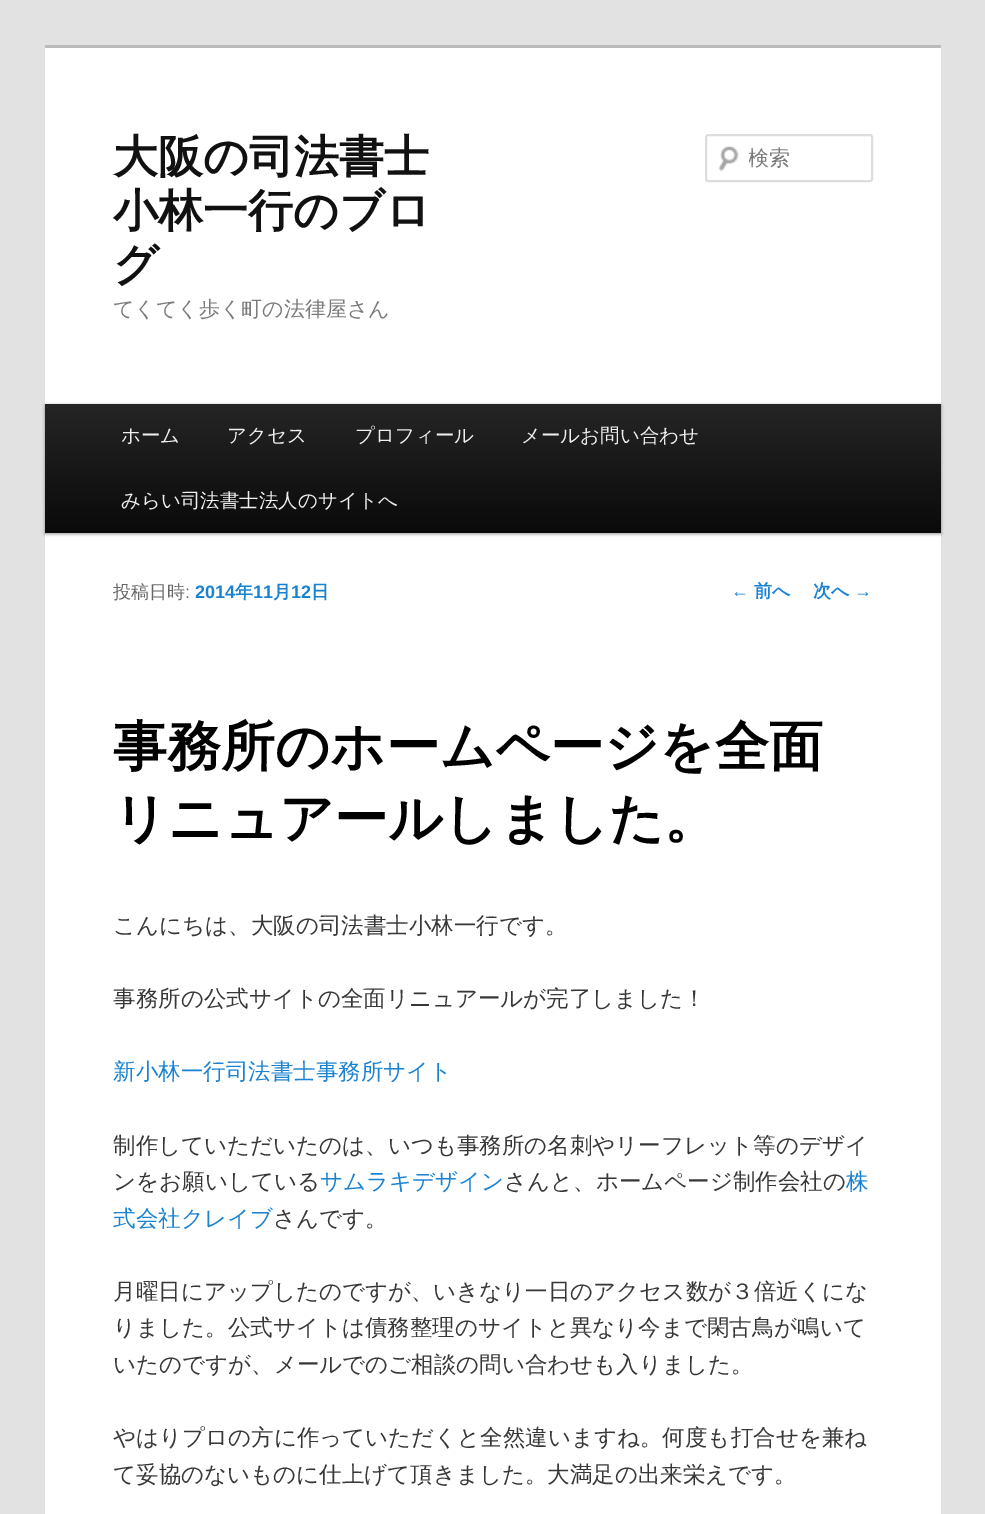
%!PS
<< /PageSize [985 1514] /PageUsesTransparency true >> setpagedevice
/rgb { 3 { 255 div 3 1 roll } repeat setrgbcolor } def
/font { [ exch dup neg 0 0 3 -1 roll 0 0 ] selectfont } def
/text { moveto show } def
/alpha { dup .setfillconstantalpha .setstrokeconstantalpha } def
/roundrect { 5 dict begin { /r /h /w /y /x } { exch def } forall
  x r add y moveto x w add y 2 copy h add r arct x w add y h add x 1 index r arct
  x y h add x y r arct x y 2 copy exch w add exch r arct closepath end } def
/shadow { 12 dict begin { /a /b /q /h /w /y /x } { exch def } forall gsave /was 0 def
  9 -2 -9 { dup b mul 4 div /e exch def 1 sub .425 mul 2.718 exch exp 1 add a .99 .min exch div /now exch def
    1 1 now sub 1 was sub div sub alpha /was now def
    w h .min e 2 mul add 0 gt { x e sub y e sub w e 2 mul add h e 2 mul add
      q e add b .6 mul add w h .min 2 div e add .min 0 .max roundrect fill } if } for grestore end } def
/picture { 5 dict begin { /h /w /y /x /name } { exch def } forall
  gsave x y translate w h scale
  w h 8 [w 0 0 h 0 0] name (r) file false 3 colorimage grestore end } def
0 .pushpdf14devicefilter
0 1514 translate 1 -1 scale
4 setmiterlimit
226 226 226 rgb
0 0 985 1514 rectfill
255 255 255 rgb
45 48 896 1466 rectfill
187 187 187 rgb
45 45 896 3 rectfill
(img_01.rgb) 718 145 21 27 picture
221 221 221 rgb
2 setlinewidth
706 135 166 46 2 roundrect stroke
0 0 0 rgb
45 405 896 129 0 1.5 0.4 shadow
gsave 45 404 moveto 896 0 rlineto 0 129 rlineto -896 0 rlineto closepath clip newpath
<< /ShadingType 2 /ColorSpace /DeviceRGB /Coords [493 403 493 533] /Extend [true true] /Function << /FunctionType 2 /Domain [0 1] /C0 [0.145 0.145 0.145] /C1 [0.039 0.039 0.039] /N 1 >> >> shfill grestore
/WenQuanYiZenHei-Bold 45 font
17 17 17 rgb
(大阪の司法書士) 113 172 text
(小林一行のブロ) 113 226 text
(グ) 113 280 text
/WenQuanYiZenHei-Medium 21 font
122 122 122 rgb
(てくてく歩く町の法律屋さん) 113 316 text
gsave
749 146 108 27 rectclip
(検索) 748 165 text
grestore
/WenQuanYiZenHei-Medium 19.5 font
238 238 238 rgb
(ホーム) 121 442 text
(アクセス) 227 442 text
(プロフィール) 355 442 text
(メールお問い合わせ) 521 442 text
(みらい司法書士法人のサイトへ) 121 507 text
/LiberationSans-Regular 18 font
25 130 209 rgb
(←) 731 597 text
/WenQuanYiZenHei-Bold 18 font
(前へ) 754 597 text
(次へ) 813 597 text
/LiberationSans-Regular 18 font
(→) 854 597 text
/WenQuanYiZenHei-Medium 18 font
102 102 102 rgb
(投稿日時) 113 598 text
/LiberationSans-Regular 18 font
(:) 185 598 text
/LiberationSans-Bold 18 font
25 130 209 rgb
(2014) 195 598 text
/WenQuanYiZenHei-Bold 18 font
(年) 235 598 text
/LiberationSans-Bold 18 font
(11) 253 598 text
/WenQuanYiZenHei-Bold 18 font
(月) 273 598 text
/LiberationSans-Bold 18 font
(12) 291 598 text
/WenQuanYiZenHei-Bold 18 font
(日) 311 598 text
/WenQuanYiZenHei-Bold 54 font
0 0 0 rgb
(事務所のホームページを全面) 113 765 text
(リニュアールしました。) 113 837 text
/WenQuanYiZenHei-Medium 22.5 font
55 55 55 rgb
(こんにちは、大阪の司法書士小林一行です。) 113 933 text
(事務所の公式サイトの全面リニュアールが完了しました！) 113 1006 text
25 130 209 rgb
(新小林一行司法書士事務所サイト) 113 1079 text
55 55 55 rgb
(制作していただいたのは、いつも事務所の名刺やリーフレット等のデザイ) 113 1153 text
(ンをお願いしている) 113 1189 text
25 130 209 rgb
(サムラキデザイン) 320 1189 text
55 55 55 rgb
(さんと、ホームページ制作会社の) 504 1189 text
25 130 209 rgb
(株) 846 1189 text
(式会社クレイブ) 113 1226 text
55 55 55 rgb
(さんです。) 273 1226 text
(月曜日にアップしたのですが、いきなり一日のアクセス数が３倍近くにな) 113 1299 text
(りました。公式サイトは債務整理のサイトと異なり今まで閑古鳥が鳴いて) 113 1335 text
(いたのですが、メールでのご相談の問い合わせも入りました。) 113 1372 text
(やはりプロの方に作っていただくと全然違いますね。何度も打合せを兼ね) 113 1445 text
(て妥協のないものに仕上げて頂きました。大満足の出来栄えです。) 113 1482 text
.poppdf14devicefilter showpage
